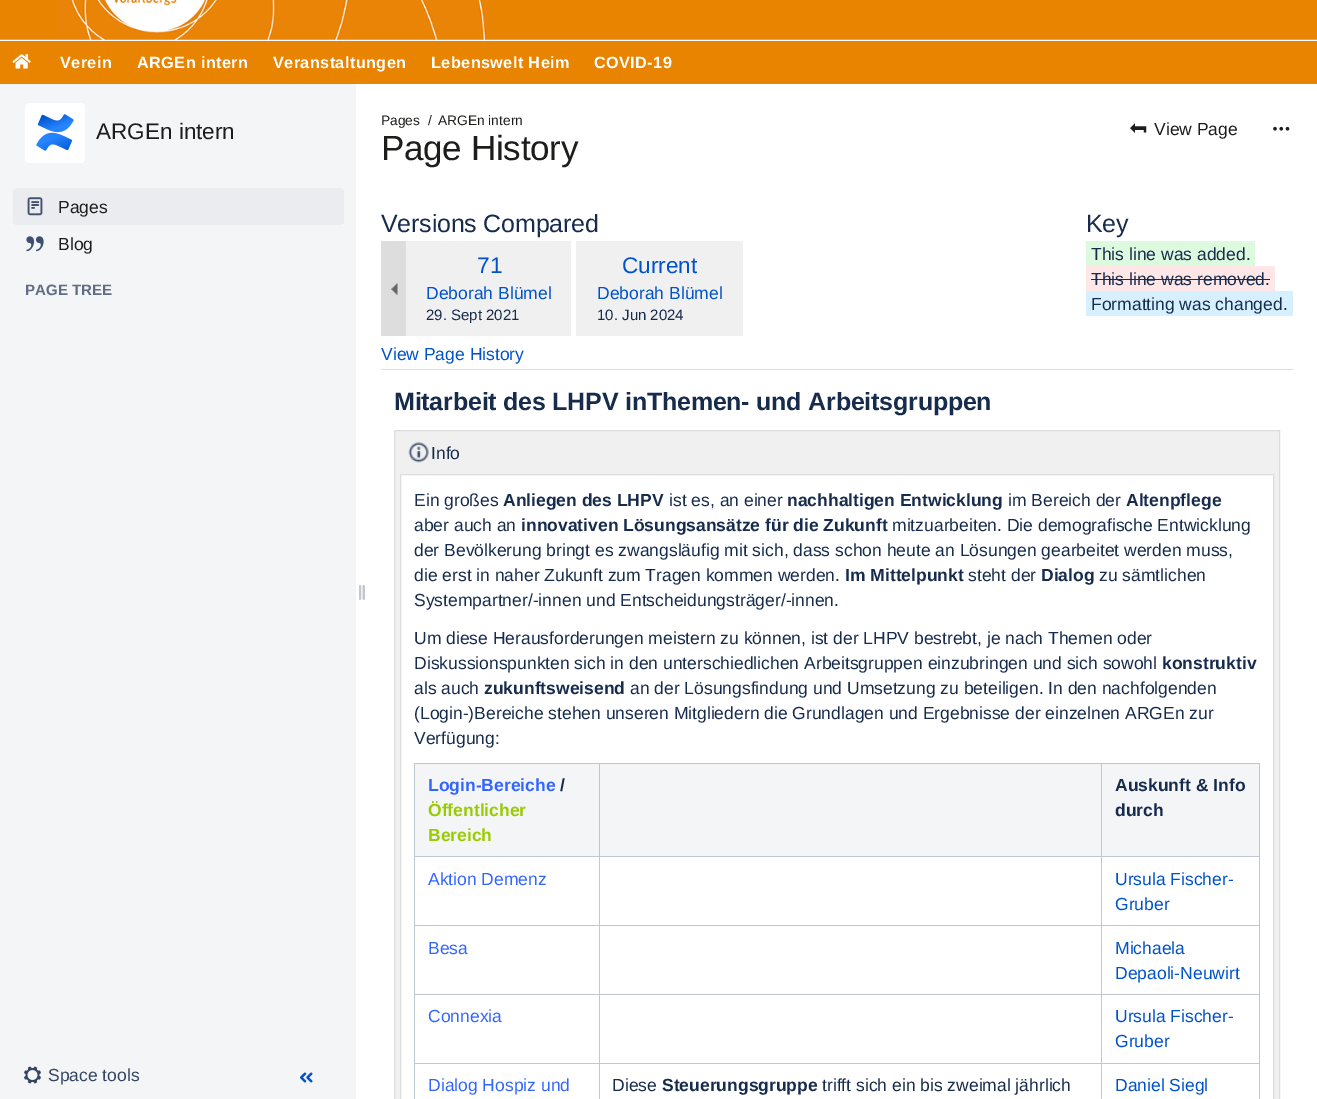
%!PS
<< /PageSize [1317 1099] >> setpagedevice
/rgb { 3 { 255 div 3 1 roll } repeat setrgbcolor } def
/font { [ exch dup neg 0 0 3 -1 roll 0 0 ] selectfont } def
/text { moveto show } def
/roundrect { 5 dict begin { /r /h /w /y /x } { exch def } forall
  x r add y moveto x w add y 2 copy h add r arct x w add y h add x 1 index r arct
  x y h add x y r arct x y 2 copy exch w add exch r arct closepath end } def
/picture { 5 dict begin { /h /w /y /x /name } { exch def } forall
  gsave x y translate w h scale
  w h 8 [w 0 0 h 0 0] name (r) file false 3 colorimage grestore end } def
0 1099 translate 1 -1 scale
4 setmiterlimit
244 245 247 rgb
0 0 1317 1099 rectfill
255 255 255 rgb
0 39 1317 2 rectfill
(img_01.rgb) 0 0 1317 40 picture
233 132 1 rgb
0 41 1317 43 rectfill
(img_02.rgb) 12 54 19 15 picture
(img_03.rgb) 25 103 60 60 picture
235 236 240 rgb
13 188 331 37 4 roundrect fill
(img_04.rgb) 27 197 16 19 picture
(img_05.rgb) 26 236 18 16 picture
255 255 255 rgb
356 84 961 1015 rectfill
(img_06.rgb) 359 585 6 15 picture
(img_07.rgb) 24 1066 17 18 picture
(img_08.rgb) 300 1072 13 11 picture
(img_09.rgb) 1130 123 17 10 picture
(img_10.rgb) 1273 126 17 5 picture
221 221 221 rgb
381 369 912 1 rectfill
221 250 222 rgb
1086 241 169 25 rectfill
255 231 231 rgb
1086 266 189 25 rectfill
23 43 77 rgb
1091 279 179 1 rectfill
214 240 255 rgb
1086 291 207 25 rectfill
240 240 240 rgb
406 241 165 95 rectfill
576 241 167 95 rectfill
221 221 221 rgb
381 241 25 95 rectfill
(img_11.rgb) 391 283 7 12 picture
240 240 240 rgb
394.5 430.5 moveto 885 0 rlineto 0 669 rlineto -885 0 rlineto closepath gsave fill grestore
221 221 221 rgb
stroke
(img_12.rgb) 408 442 21 21 picture
255 255 255 rgb
400.5 474.5 moveto 873 0 rlineto 0 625 rlineto -873 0 rlineto closepath gsave fill grestore
221 221 221 rgb
stroke
244 245 247 rgb
415 764 184 92 rectfill
193 199 208 rgb
1101 763 159 1 rectfill
1101 856 159 1 rectfill
1101 925 159 1 rectfill
1101 994 159 1 rectfill
1101 1063 159 1 rectfill
1101 1063 1 36 rectfill
599 1063 504 1 rectfill
1101 994 1 70 rectfill
599 994 504 1 rectfill
1101 925 1 70 rectfill
599 925 504 1 rectfill
1101 856 1 70 rectfill
599 856 504 1 rectfill
1101 763 1 95 rectfill
599 763 504 1 rectfill
599 1063 1 36 rectfill
414 1063 186 1 rectfill
599 994 1 70 rectfill
414 994 186 1 rectfill
599 925 1 70 rectfill
414 925 186 1 rectfill
599 856 1 70 rectfill
414 856 186 1 rectfill
599 763 1 95 rectfill
414 763 186 1 rectfill
414 1063 1 36 rectfill
414 994 1 70 rectfill
414 925 1 70 rectfill
414 856 1 70 rectfill
414 763 1 95 rectfill
244 245 247 rgb
600 764 501 92 rectfill
1102 764 157 92 rectfill
193 199 208 rgb
1259 1063 1 36 rectfill
1259 994 1 70 rectfill
1259 925 1 70 rectfill
1259 856 1 70 rectfill
1259 763 1 95 rectfill
/LiberationSans-Bold 16.25 font
255 255 255 rgb
60 68 moveto 0.4 0 (Verein) ashow
137 68 moveto 0.4 0 (ARGEn intern) ashow
273 68 moveto 0.4 0 (Veranstaltungen) ashow
431 68 moveto 0.4 0 (Lebenswelt Heim) ashow
594 68 moveto 0.4 0 (COVID-19) ashow
/LiberationSans-Regular 22.5 font
29 29 27 rgb
(ARGEn intern) 96 139 text
/LiberationSans-Regular 17.5 font
(Pages) 58 213 text
(Blog) 58 250 text
/LiberationSans-Bold 15 font
94 108 132 rgb
(PAGE TREE) 25 295 text
/LiberationSans-Regular 17.5 font
52 69 99 rgb
(Space tools) 48 1081 text
/LiberationSans-Regular 13.75 font
29 29 27 rgb
(Pages) 381 125 text
(/) 428 125 text
(ARGEn intern) 438 125 text
/LiberationSans-Regular 35 font
381 160 moveto -0.3 0 (Page History) ashow
/LiberationSans-Regular 17.5 font
(View Page) 1154 135 text
/LiberationSans-Regular 25 font
23 43 77 rgb
381 232 moveto -0.2 0 (Versions Compared) ashow
1086 232 moveto -0.2 0 (Key) ashow
/LiberationSans-Regular 17.5 font
(This line was added.) 1091 260 text
(This line was removed.) 1091 285 text
(Formatting was changed.) 1091 310 text
/LiberationSans-Regular 22.5 font
0 82 204 rgb
(71) 477 273 text
/LiberationSans-Regular 17.5 font
(Deborah Blümel) 426 299 text
/LiberationSans-Regular 15 font
23 43 77 rgb
(29. Sept 2021) 426 320 text
/LiberationSans-Regular 22.5 font
0 82 204 rgb
(Current) 622 273 text
/LiberationSans-Regular 17.5 font
(Deborah Blümel) 597 299 text
/LiberationSans-Regular 15 font
23 43 77 rgb
(10. Jun 2024) 597 320 text
/LiberationSans-Regular 17.5 font
0 82 204 rgb
(View Page History) 381 360 text
/LiberationSans-Bold 25 font
23 43 77 rgb
394 410 moveto -0.2 0 (Mitarbeit des LHPV inThemen- und Arbeitsgruppen) ashow
/LiberationSans-Regular 17.5 font
(Info) 431 459 text
(Ein großes) 414 506 text
/LiberationSans-Bold 17.5 font
(Anliegen des LHPV) 503 506 text
/LiberationSans-Regular 17.5 font
(ist es, an einer) 669 506 text
/LiberationSans-Bold 17.5 font
(nachhaltigen Entwicklung) 787 506 text
/LiberationSans-Regular 17.5 font
(im Bereich der) 1008 506 text
/LiberationSans-Bold 17.5 font
(Altenpflege) 1126 506 text
/LiberationSans-Regular 17.5 font
(aber auch an) 414 531 text
/LiberationSans-Bold 17.5 font
(innovativen Lösungsansätze für die Zukunft) 521 531 text
/LiberationSans-Regular 17.5 font
(mitzuarbeiten. Die demografische Entwicklung) 892 531 text
(der Bevölkerung bringt es zwangsläufig mit sich, dass schon heute an Lösungen gearbeitet werden muss,) 414 556 text
(die erst in naher Zukunft zum Tragen kommen werden.) 414 581 text
/LiberationSans-Bold 17.5 font
(Im Mittelpunkt) 845 581 text
/LiberationSans-Regular 17.5 font
(steht der) 968 581 text
/LiberationSans-Bold 17.5 font
(Dialog) 1041 581 text
/LiberationSans-Regular 17.5 font
(zu sämtlichen) 1099 581 text
(Systempartner/-innen und Entscheidungsträger/-innen.) 414 606 text
(Um diese Herausforderungen meistern zu können, ist der LHPV bestrebt, je nach Themen oder) 414 644 text
(Diskussionspunkten sich in den unterschiedlichen Arbeitsgruppen einzubringen und sich sowohl) 414 669 text
/LiberationSans-Bold 17.5 font
(konstruktiv) 1162 669 text
/LiberationSans-Regular 17.5 font
(als auch) 414 694 text
/LiberationSans-Bold 17.5 font
(zukunftsweisend) 484 694 text
/LiberationSans-Regular 17.5 font
(an der Lösungsfindung und Umsetzung zu beteiligen. In den nachfolgenden) 630 694 text
(\(Login-\)Bereiche stehen unseren Mitgliedern die Grundlagen und Ergebnisse der einzelnen ARGEn zur) 414 719 text
(Verfügung:) 414 744 text
/LiberationSans-Bold 17.5 font
51 102 255 rgb
(Login-Bereiche) 428 791 text
23 43 77 rgb
(/) 560 791 text
153 204 0 rgb
(Öffentlicher) 428 816 text
(Bereich) 428 841 text
23 43 77 rgb
(Auskunft & Info) 1115 791 text
(durch) 1115 816 text
/LiberationSans-Regular 17.5 font
51 102 255 rgb
(Aktion Demenz) 428 885 text
0 82 204 rgb
(Ursula Fischer-) 1115 885 text
(Gruber) 1115 910 text
51 102 255 rgb
(Besa) 428 954 text
0 82 204 rgb
(Michaela) 1115 954 text
(Depaoli-Neuwirt) 1115 979 text
51 102 255 rgb
(Connexia) 428 1022 text
0 82 204 rgb
(Ursula Fischer-) 1115 1022 text
(Gruber) 1115 1047 text
51 102 255 rgb
(Dialog Hospiz und) 428 1091 text
23 43 77 rgb
(Diese) 612 1091 text
/LiberationSans-Bold 17.5 font
(Steuerungsgruppe) 662 1091 text
/LiberationSans-Regular 17.5 font
(trifft sich ein bis zweimal jährlich) 822 1091 text
0 82 204 rgb
(Daniel Siegl) 1115 1091 text
showpage
